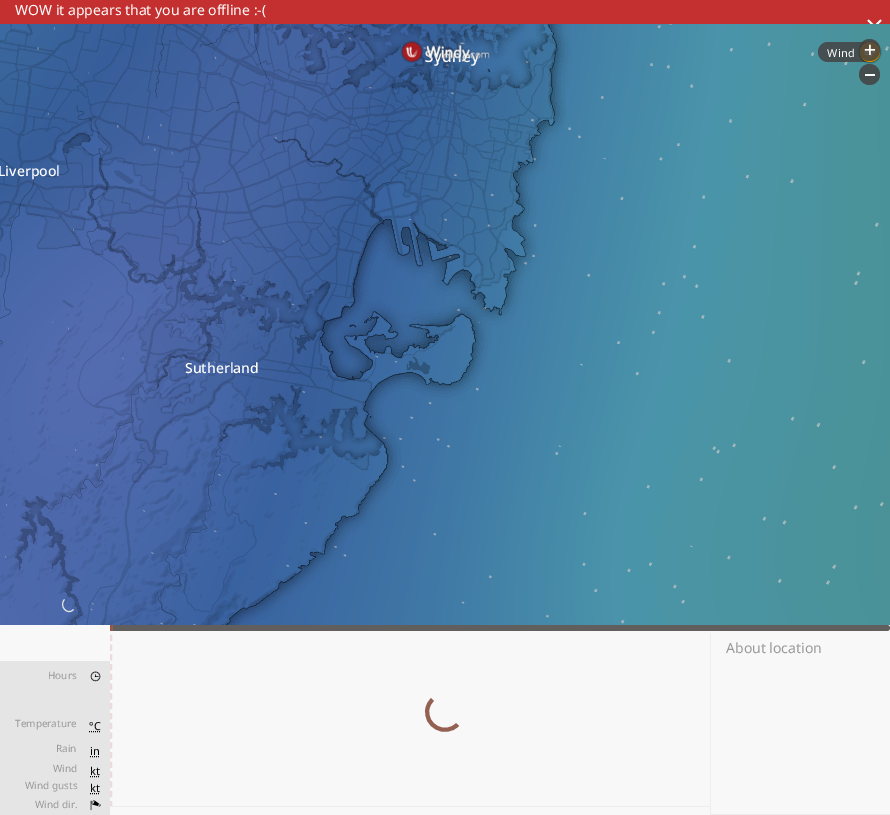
%!PS
<< /PageSize [890 815] /PageUsesTransparency true >> setpagedevice
/rgb { 3 { 255 div 3 1 roll } repeat setrgbcolor } def
/font { [ exch dup neg 0 0 3 -1 roll 0 0 ] selectfont } def
/text { moveto show } def
/alpha { dup .setfillconstantalpha .setstrokeconstantalpha } def
/circle { newpath 0 360 arc closepath } def
/roundrect { 5 dict begin { /r /h /w /y /x } { exch def } forall
  x r add y moveto x w add y 2 copy h add r arct x w add y h add x 1 index r arct
  x y h add x y r arct x y 2 copy exch w add exch r arct closepath end } def
/shadow { 12 dict begin { /a /b /q /h /w /y /x } { exch def } forall gsave /was 0 def
  9 -2 -9 { dup b mul 4 div /e exch def 1 sub .425 mul 2.718 exch exp 1 add a .99 .min exch div /now exch def
    1 1 now sub 1 was sub div sub alpha /was now def
    w h .min e 2 mul add 0 gt { x e sub y e sub w e 2 mul add h e 2 mul add
      q e add b .6 mul add w h .min 2 div e add .min 0 .max roundrect fill } if } for grestore end } def
/picture { 5 dict begin { /h /w /y /x /name } { exch def } forall
  gsave x y translate w h scale
  w h 8 [w 0 0 h 0 0] name (r) file false 3 colorimage grestore end } def
0 .pushpdf14devicefilter
0 815 translate 1 -1 scale
4 setmiterlimit
255 255 255 rgb
0 0 890 815 rectfill
196 47 47 rgb
0 0 890 24 rectfill
(img_01.rgb) 867 19 15 5 picture
(img_08.rgb) 388 24 256 60 picture
(img_06.rgb) 0 24 132 60 picture
(img_07.rgb) 132 24 256 60 picture
(img_09.rgb) 644 24 246 60 picture
(img_10.rgb) 0 84 132 256 picture
(img_11.rgb) 132 84 256 256 picture
(img_12.rgb) 388 84 256 256 picture
(img_13.rgb) 644 84 246 256 picture
(img_14.rgb) 0 340 132 256 picture
(img_15.rgb) 132 340 256 256 picture
(img_16.rgb) 388 340 256 256 picture
(img_17.rgb) 644 340 246 256 picture
(img_18.rgb) 0 596 132 29 picture
(img_19.rgb) 132 596 256 29 picture
(img_20.rgb) 388 596 256 29 picture
(img_21.rgb) 644 596 246 29 picture
(img_33.rgb) 5 24 884 601 picture
(img_24.rgb) 388 24 191 60 picture
(img_02.rgb) 400 40 24 24 picture
0.84 alpha
68 65 65 rgb
818 42 62 20 10 roundrect fill
1 alpha
0 0 0 rgb
860 42 20 20 10 1 1 shadow
212 149 0 rgb
870 52 10 circle fill
(img_04.rgb) 864 50 11 7 picture
0.84 alpha
68 65 65 rgb
859 39 21 22 10.5 roundrect fill
1 alpha
(img_05.rgb) 864 44 12 11 picture
69 78 79 rgb
869.5 74.5 10.5 circle fill
255 255 255 rgb
865 74 10 2 rectfill
(img_22.rgb) 0 24 132 60 picture
(img_23.rgb) 132 24 256 60 picture
(img_25.rgb) 0 84 132 256 picture
(img_26.rgb) 132 84 256 256 picture
(img_27.rgb) 388 84 178 256 picture
(img_28.rgb) 0 340 132 256 picture
(img_29.rgb) 132 340 256 256 picture
(img_30.rgb) 388 340 102 151 picture
(img_31.rgb) 0 596 132 29 picture
(img_32.rgb) 132 596 156 29 picture
229 229 229 rgb
73.5 609.5 moveto -6 6.5 -15 -3.5 -9 -10 rcurveto stroke
248 248 248 rgb
0 625 890 190 rectfill
97 94 94 rgb
110 625 780 6 3 roundrect fill
148 96 81 rgb
110 625 3 6 rectfill
0.12 alpha
157 3 0 rgb
2 setlinewidth
[6 3.78] 0 setdash
111 625 moveto 0 182 rlineto stroke
1 alpha
237 237 237 rgb
710 814 180 1 rectfill
710 633 1 182 rectfill
110 806 601 1 rectfill
229 229 229 rgb
0 661 110 154 rectfill
(img_34.rgb) 90 671 11 11 picture
0 0 0 rgb
1 setlinewidth
[1 1] 0 setdash
89 731.5 moveto 12 0 rlineto stroke
90 756.5 moveto 10 0 rlineto stroke
90 776.5 moveto 10 0 rlineto stroke
90 793.5 moveto 10 0 rlineto stroke
(img_35.rgb) 90 800 11 11 picture
148 96 81 rgb
4 setlinewidth
[] 0 setdash
457.5 724.5 moveto -12 12.5 -33.5 1.5 -30 -16 rcurveto 0.5 -3.5 2.5 -6.5 5 -9 rcurveto stroke
/NotoSans-Regular 14 font
255 255 255 rgb
(WOW it appears that you are offline :-\() 15 15 text
/NotoSans-Regular 11 font
827 57 moveto 0.5 0 (Wind) ashow
/NotoSans-Medium 16 font
(Sydney) 425 62 text
(img_03.rgb) 425 44 66 19 picture
/NotoSans-Medium 14 font
(Liverpool) -2 176 text
(Sutherland) 185 373 text
/NotoSans-Regular 14 font
153 153 153 rgb
(About location) 726 653 text
/NotoSans-Regular 10 font
(Hours) 48 679 text
(Temperature) 15 727 text
/NotoSans-Regular 11 font
0 0 0 rgb
(°C) 89 730 text
/NotoSans-Regular 10 font
153 153 153 rgb
(Rain) 56 752 text
/NotoSans-Regular 11 font
0 0 0 rgb
(in) 90 755 text
/NotoSans-Regular 10 font
153 153 153 rgb
(Wind) 53 772 text
/NotoSans-Regular 11 font
0 0 0 rgb
(kt) 90 775 text
/NotoSans-Regular 10 font
153 153 153 rgb
(Wind gusts) 25 789 text
/NotoSans-Regular 11 font
0 0 0 rgb
(kt) 90 792 text
/NotoSans-Regular 10 font
153 153 153 rgb
(Wind dir.) 35 808 text
.poppdf14devicefilter showpage
